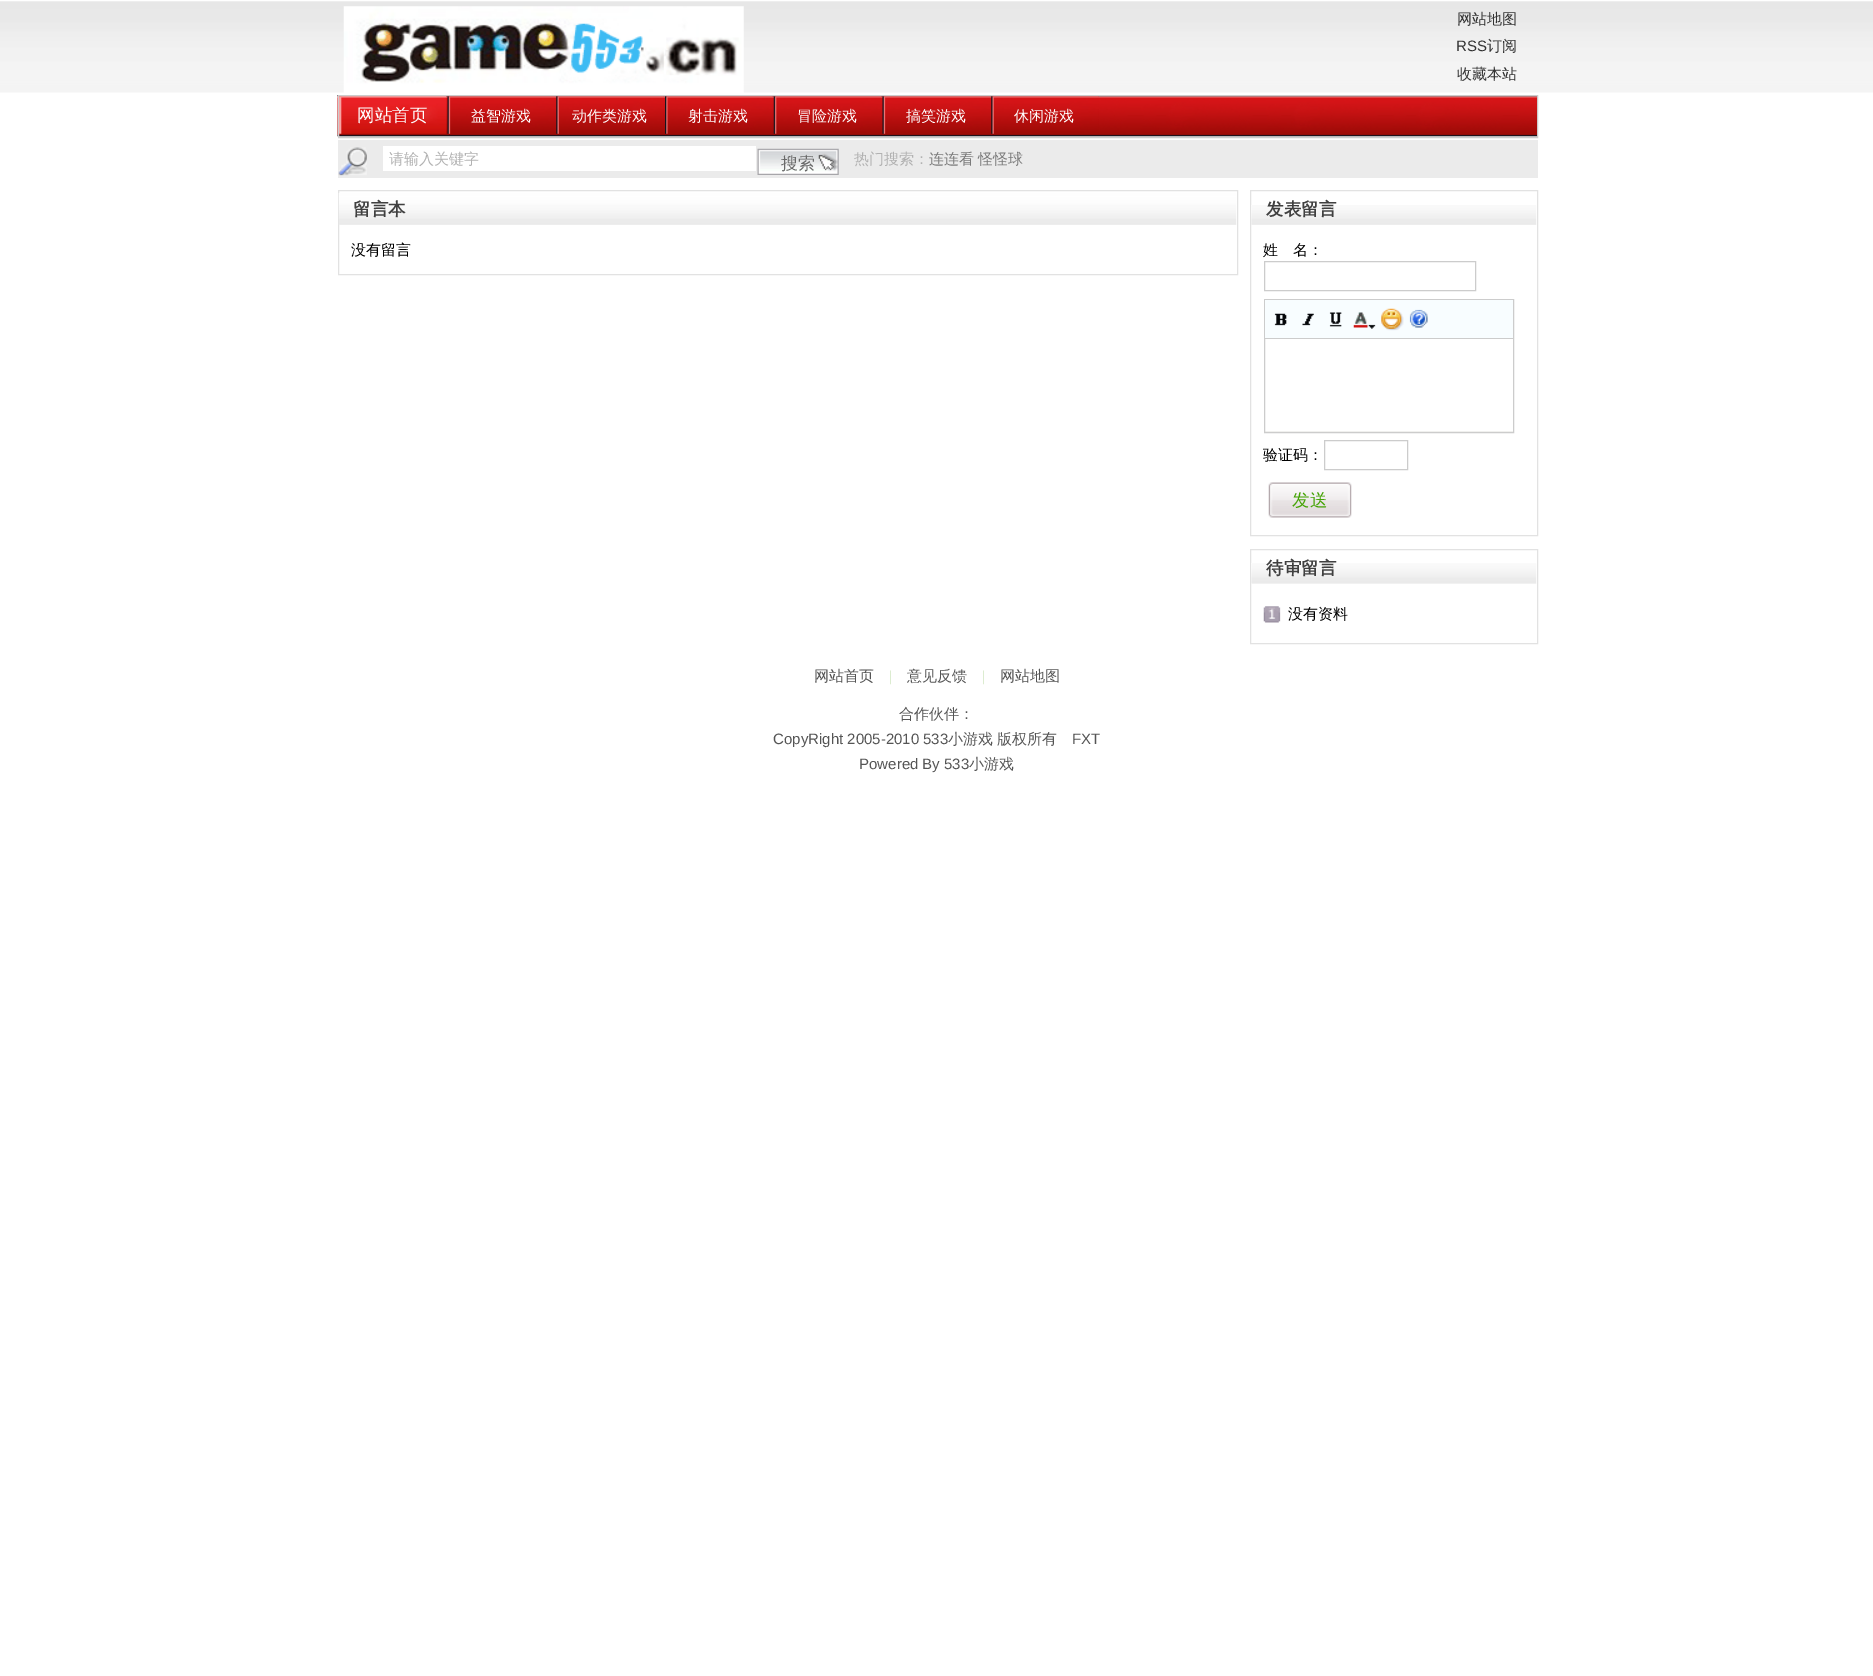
%!PS
<< /PageSize [1873 1676] >> setpagedevice
/rgb { 3 { 255 div 3 1 roll } repeat setrgbcolor } def
/font { [ exch dup neg 0 0 3 -1 roll 0 0 ] selectfont } def
/text { moveto show } def
/picture { 5 dict begin { /h /w /y /x /name } { exch def } forall
  gsave x y translate w h scale
  w h 8 [w 0 0 h 0 0] name (r) file false 3 colorimage grestore end } def
0 1676 translate 1 -1 scale
4 setmiterlimit
255 255 255 rgb
0 0 1873 1676 rectfill
(img_01.rgb) 0 1 1873 92 picture
(img_02.rgb) 343 6 401 87 picture
(img_03.rgb) 337 95 1200 42 picture
204 204 204 rgb
338.5 95.5 1199 42 rectstroke
(img_04.rgb) 339 96 108 36 picture
(img_05.rgb) 339 96 108 38 picture
(img_06.rgb) 447 96 108 38 picture
(img_07.rgb) 556 96 108 38 picture
(img_08.rgb) 665 96 108 38 picture
(img_09.rgb) 773 96 109 38 picture
(img_10.rgb) 882 96 108 38 picture
(img_11.rgb) 991 96 108 38 picture
235 235 235 rgb
338 140 1200 38 rectfill
(img_12.rgb) 338 147 29 29 picture
255 255 255 rgb
383 146 373 25 rectfill
(img_13.rgb) 757 148 82 27 picture
226 226 226 rgb
338.5 190.5 899 84 rectstroke
(img_14.rgb) 338 193 899 32 picture
1250.5 190.5 287 345 rectstroke
(img_15.rgb) 1251 205 286 20 picture
204 204 204 rgb
1264.5 261.5 211 29 rectstroke
240 240 238 rgb
1265 431 248 1 rectfill
204 204 204 rgb
1264.5 299.5 249 133 rectstroke
248 253 255 rgb
1265 300 248 38 rectfill
204 204 204 rgb
1265 338 248 1 rectfill
(img_16.rgb) 1274 313 13 13 picture
(img_17.rgb) 1302 313 12 13 picture
(img_18.rgb) 1329 312 13 15 picture
(img_19.rgb) 1353 312 23 17 picture
(img_20.rgb) 1381 308 23 23 picture
(img_21.rgb) 1409 309 19 19 picture
1324.5 440.5 83 29 rectstroke
(img_22.rgb) 1268 482 84 36 picture
226 226 226 rgb
1250.5 549.5 287 94 rectstroke
(img_23.rgb) 1251 563 286 21 picture
(img_24.rgb) 1263 606 18 17 picture
/WenQuanYiZenHei-Medium 15 font
51 51 51 rgb
(网站地图) 1457 24 text
/LiberationSans-Regular 15 font
(RSS) 1456 51 text
/WenQuanYiZenHei-Medium 15 font
(订阅) 1487 51 text
(收藏本站) 1457 79 text
/WenQuanYiZenHei-Medium 17.5 font
255 255 255 rgb
(网站首页) 357 121 text
/WenQuanYiZenHei-Medium 15 font
(益智游戏) 471 121 text
(动作类游戏) 572 121 text
(射击游戏) 688 121 text
(冒险游戏) 797 121 text
(搞笑游戏) 906 121 text
(休闲游戏) 1014 121 text
178 178 178 rgb
(请输入关键字) 389 164 text
/WenQuanYiZenHei-Medium 17 font
105 105 105 rgb
(搜索) 781 169 text
/WenQuanYiZenHei-Medium 15 font
178 178 178 rgb
(热门搜索：) 854 164 text
122 122 122 rgb
(连连看) 929 164 text
(怪怪球) 978 164 text
/WenQuanYiZenHei-Bold 17.5 font
64 64 64 rgb
(留言本) 353 215 text
/WenQuanYiZenHei-Medium 15 font
0 0 0 rgb
(没有留言) 351 255 text
/WenQuanYiZenHei-Bold 17.5 font
64 64 64 rgb
(发表留言) 1266 215 text
/WenQuanYiZenHei-Medium 15 font
0 0 0 rgb
(姓　名：) 1263 255 text
(验证码：) 1263 460 text
/WenQuanYiZenHei-Medium 17.5 font
70 164 7 rgb
(发送) 1292 506 text
/WenQuanYiZenHei-Bold 17.5 font
64 64 64 rgb
(待审留言) 1266 574 text
/WenQuanYiZenHei-Medium 15 font
0 0 0 rgb
(没有资料) 1288 619 text
85 85 85 rgb
(网站首页) 814 681 text
/LiberationSerif-Regular 15 font
208 230 192 rgb
(|) 889 681 text
/WenQuanYiZenHei-Medium 15 font
85 85 85 rgb
(意见反馈) 907 681 text
/LiberationSerif-Regular 15 font
208 230 192 rgb
(|) 982 681 text
/WenQuanYiZenHei-Medium 15 font
85 85 85 rgb
(网站地图) 1000 681 text
(合作伙伴：) 899 719 text
/LiberationSans-Regular 15 font
(CopyRight 2005-2010 533) 773 744 text
/WenQuanYiZenHei-Medium 15 font
(小游戏) 948 744 text
(版权所有) 997 744 text
/LiberationSans-Regular 15 font
(FXT) 1072 744 text
(Powered By 533) 859 769 text
/WenQuanYiZenHei-Medium 15 font
(小游戏) 969 769 text
showpage
